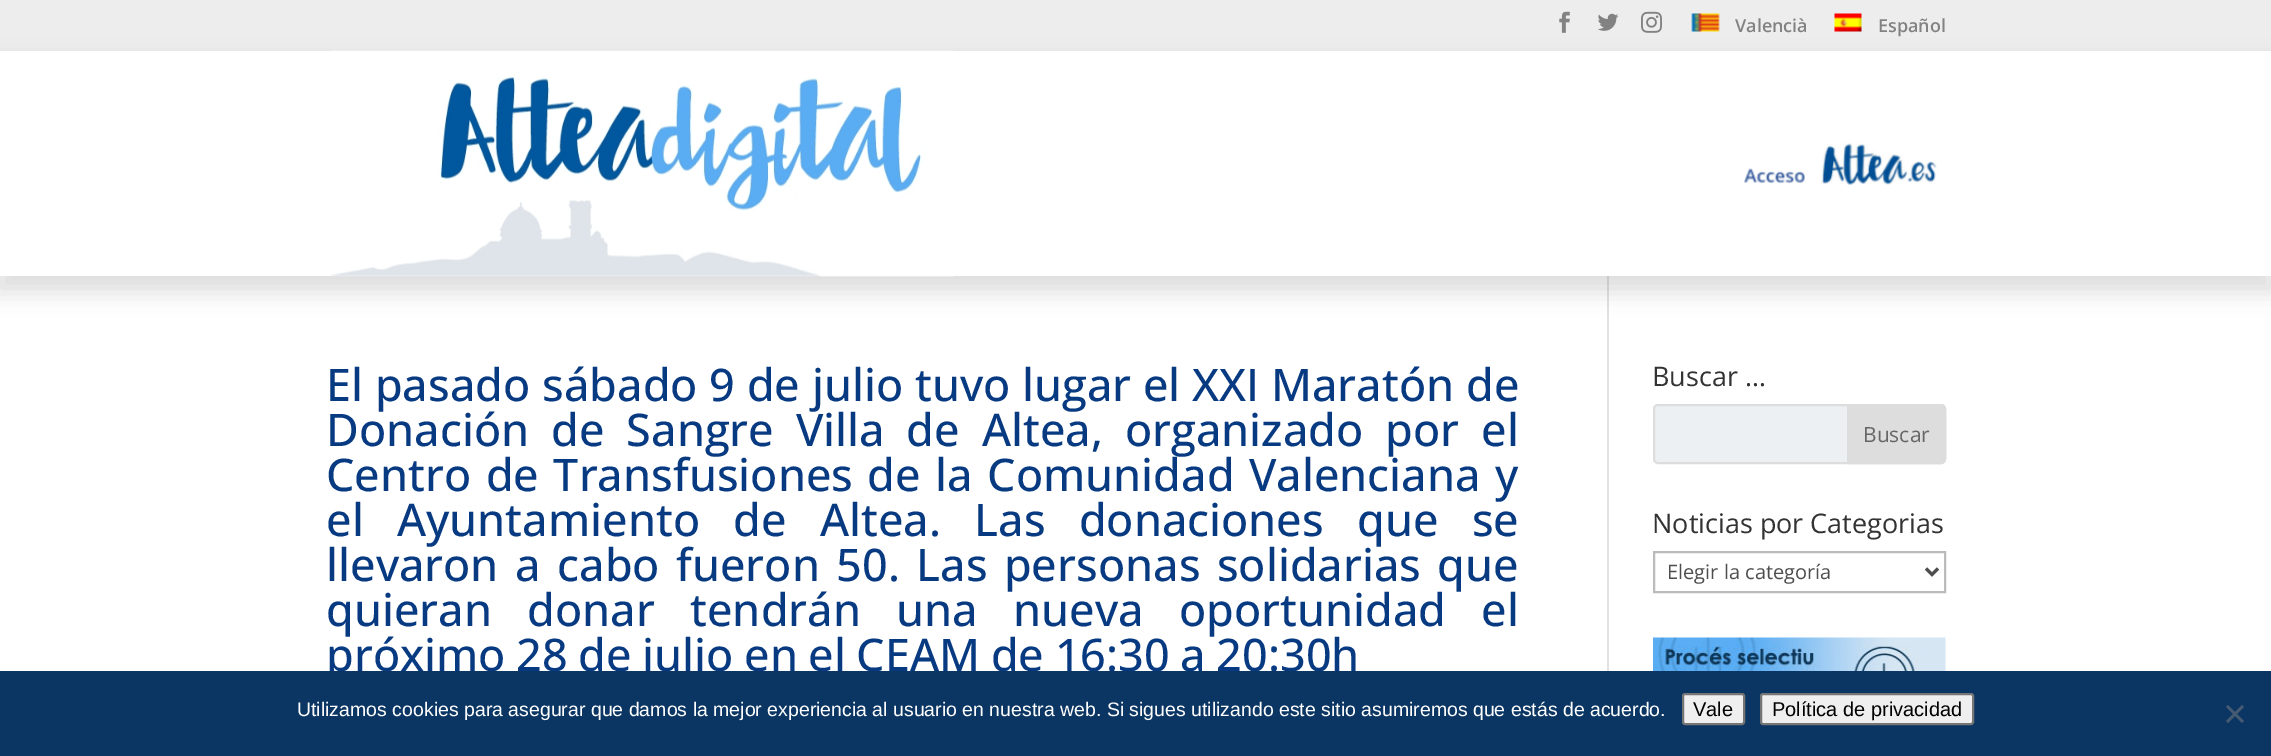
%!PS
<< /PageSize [2271 756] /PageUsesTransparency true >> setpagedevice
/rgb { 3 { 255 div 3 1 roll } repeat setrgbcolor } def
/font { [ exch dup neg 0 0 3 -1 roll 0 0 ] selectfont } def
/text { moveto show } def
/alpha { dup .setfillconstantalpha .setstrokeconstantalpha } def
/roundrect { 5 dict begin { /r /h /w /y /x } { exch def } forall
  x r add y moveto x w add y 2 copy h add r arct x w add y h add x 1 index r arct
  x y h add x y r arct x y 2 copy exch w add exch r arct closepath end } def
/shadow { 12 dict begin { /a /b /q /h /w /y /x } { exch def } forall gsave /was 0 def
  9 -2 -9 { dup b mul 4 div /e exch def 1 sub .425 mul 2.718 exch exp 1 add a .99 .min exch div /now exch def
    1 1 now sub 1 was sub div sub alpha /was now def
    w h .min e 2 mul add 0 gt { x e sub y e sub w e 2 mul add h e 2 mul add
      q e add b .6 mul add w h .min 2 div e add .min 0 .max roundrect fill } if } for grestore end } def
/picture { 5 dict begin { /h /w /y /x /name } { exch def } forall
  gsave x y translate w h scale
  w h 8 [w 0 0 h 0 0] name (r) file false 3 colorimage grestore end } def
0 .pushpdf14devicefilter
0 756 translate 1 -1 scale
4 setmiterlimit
255 255 255 rgb
0 0 2271 756 rectfill
237 237 237 rgb
0 0 2271 51 rectfill
(img_01.rgb) 1559 11 11 22 picture
(img_02.rgb) 1598 13 21 18 picture
(img_03.rgb) 1641 11 21 22 picture
(img_04.rgb) 1691 13 29 19 picture
(img_05.rgb) 1834 13 28 19 picture
226 226 226 rgb
1607 275 2 396 rectfill
0 0 0 rgb
-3 62 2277 231 0 11 0.12 shadow
255 255 255 rgb
0 51 2271 225 rectfill
(img_06.rgb) 331 50 623 227 picture
(img_07.rgb) 1744 143 193 42 picture
237 240 242 rgb
1654 405 291 58 4 roundrect gsave fill grestore
221 221 221 rgb
2 setlinewidth
stroke
1848 405 moveto 93 0 rlineto 2 0 4 2 4 4 rcurveto 0 50 rlineto 0 2 -2 4 -4 4 rcurveto -93 0 rlineto closepath gsave fill grestore
stroke
187 187 187 rgb
1654 552 291 40 rectstroke
78 78 78 rgb
3 setlinewidth
1926 568.5 moveto 6 6 rlineto 6 -6 rlineto stroke
(img_08.rgb) 1653 637 293 34 picture
/OpenSans-SemiBold 18 font
130 130 130 rgb
(Valencià) 1735 32 text
(Español) 1878 32 text
/OpenSans-Medium 45 font
8 58 130 rgb
(El pasado sábado 9 de julio tuvo lugar el XXI Maratón de) 326 401 text
326 446 moveto 10.25 0 32 (Donación de Sangre Villa de Altea, organizado por el) widthshow
326 491 moveto 2.75 0 32 (Centro de Transfusiones de la Comunidad Valenciana y) widthshow
326 536 moveto 21.5 0 32 (el Ayuntamiento de Altea. Las donaciones que se) widthshow
326 581 moveto 4.75 0 32 (llevaron a cabo fueron 50. Las personas solidarias que) widthshow
326 626 moveto 23.5 0 32 (quieran donar tendrán una nueva oportunidad el) widthshow
326 671 moveto -1.1 0 32 (próximo 28 de julio en el CEAM de 16:30 a 20:30h) widthshow
/OpenSans-Regular 27 font
51 51 51 rgb
(Buscar …) 1652 386 text
/OpenSans-Regular 21 font
102 102 102 rgb
(Buscar) 1863 442 text
/OpenSans-Regular 27 font
51 51 51 rgb
(Noticias por Categorias) 1652 533 text
/OpenSans-Regular 20 font
78 78 78 rgb
(Elegir la categoría) 1667 579 text
11 54 99 rgb
0 671 2271 85 rectfill
/LiberationSans-Regular 19.5 font
255 255 255 rgb
(Utilizamos cookies para asegurar que damos la mejor experiencia al usuario en nuestra web. Si sigues utilizando este sitio asumiremos que estás de acuerdo.) 297 716 text
239 239 239 rgb
1683 694 61 30 2 roundrect gsave fill grestore
118 118 118 rgb
2 setlinewidth
stroke
/LiberationSans-Regular 20 font
0 0 0 rgb
(Vale) 1693 716 text
239 239 239 rgb
1761 694 212 30 2 roundrect gsave fill grestore
118 118 118 rgb
stroke
0 0 0 rgb
(Política de privacidad) 1772 716 text
70 91 114 rgb
2242 705 moveto 2 2 rlineto -16 16 rlineto -2 -2 rlineto closepath fill
2226 707 moveto 2 -2 rlineto 16 16 rlineto -2 2 rlineto closepath fill
.poppdf14devicefilter showpage
